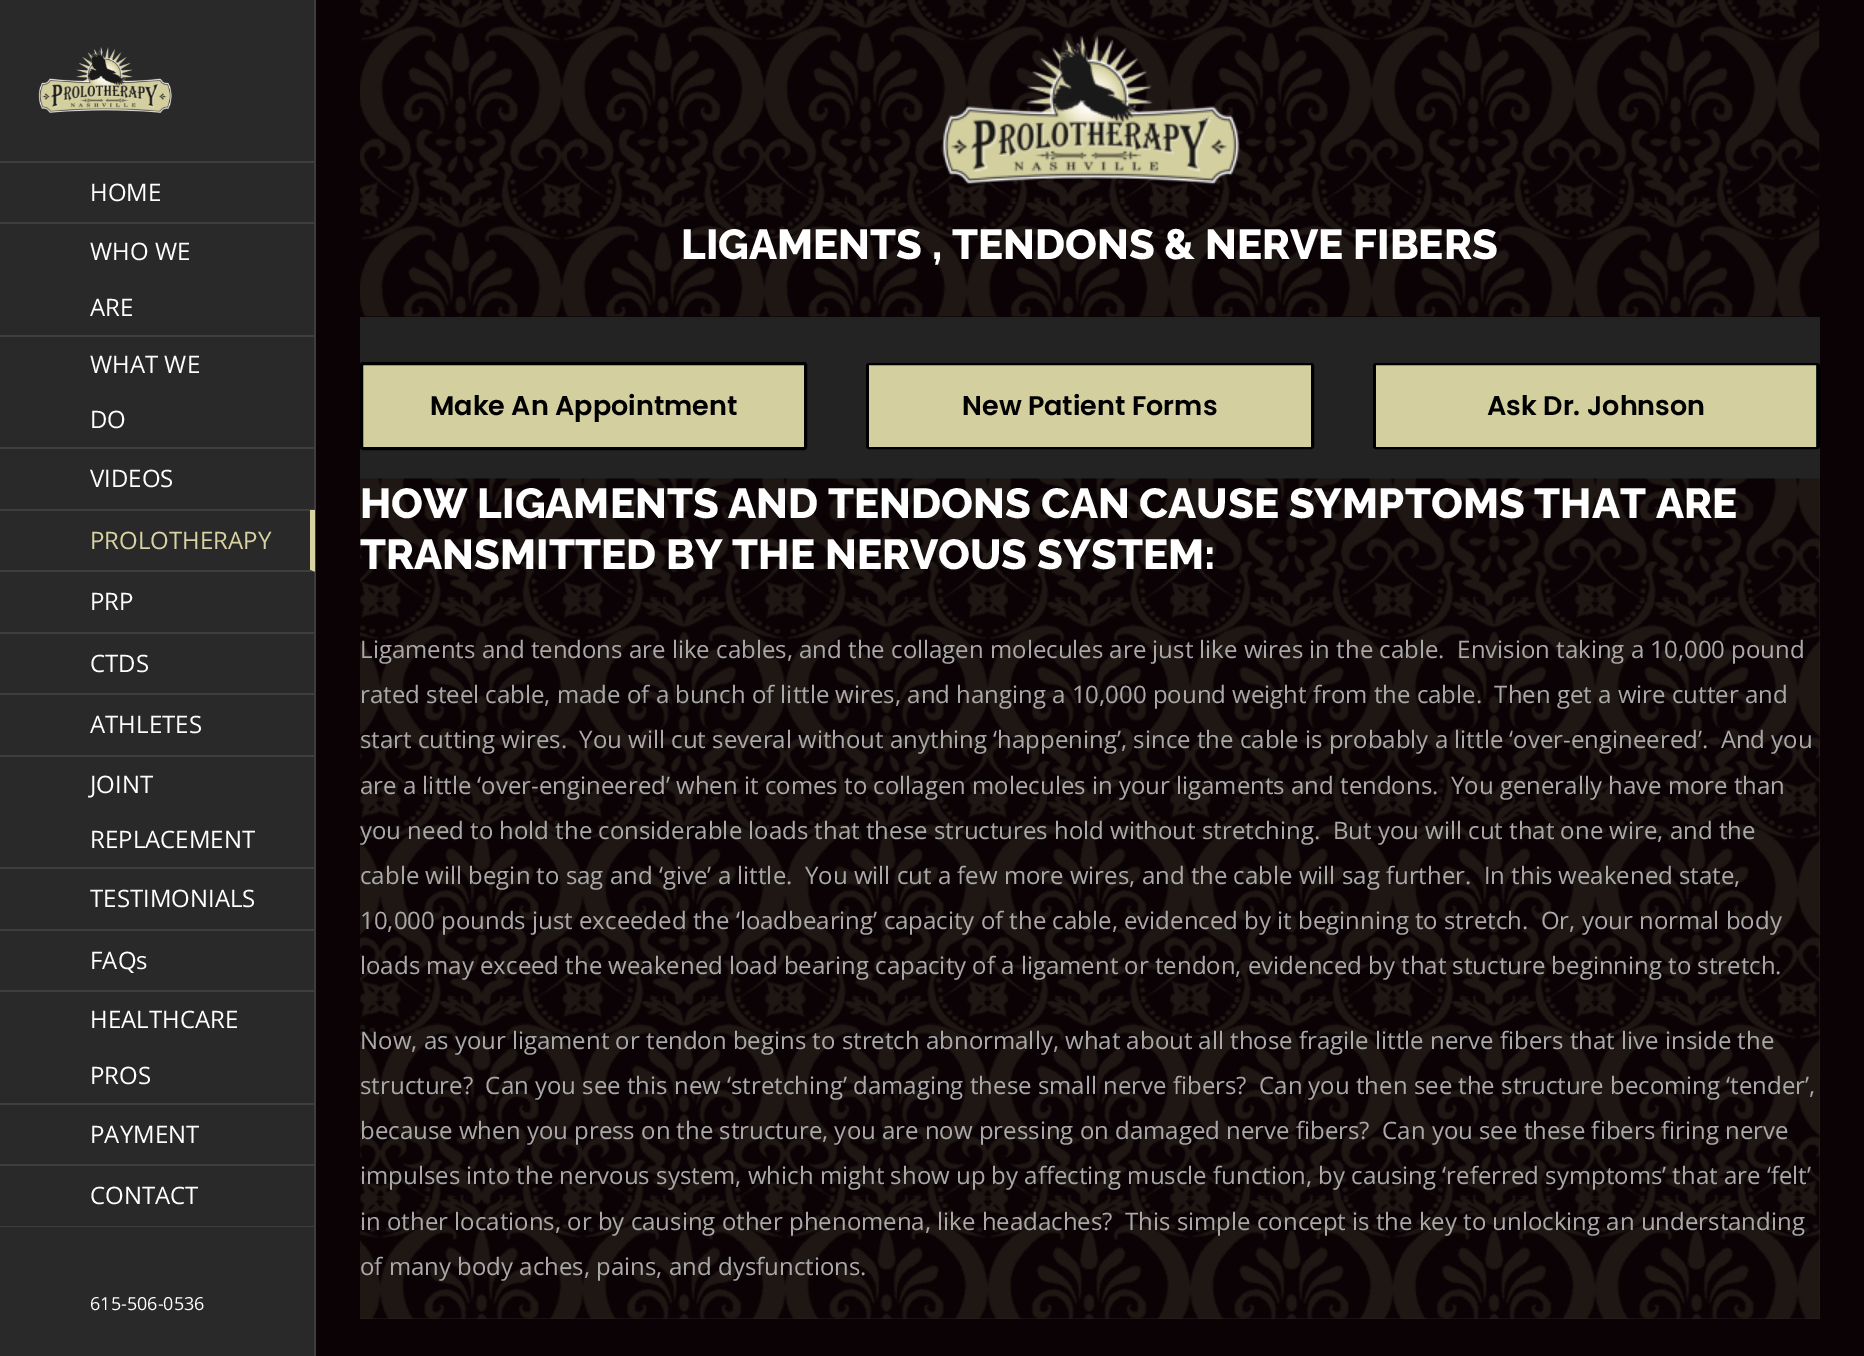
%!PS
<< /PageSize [1864 1356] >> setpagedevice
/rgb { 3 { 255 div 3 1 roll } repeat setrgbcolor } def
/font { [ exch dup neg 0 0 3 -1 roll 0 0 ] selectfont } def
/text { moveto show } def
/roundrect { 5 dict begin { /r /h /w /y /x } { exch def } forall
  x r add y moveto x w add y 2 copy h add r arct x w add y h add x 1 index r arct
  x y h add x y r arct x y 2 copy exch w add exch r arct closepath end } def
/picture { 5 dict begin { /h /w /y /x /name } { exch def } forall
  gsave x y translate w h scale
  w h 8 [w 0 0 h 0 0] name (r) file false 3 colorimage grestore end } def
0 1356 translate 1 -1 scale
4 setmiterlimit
10 2 4 rgb
0 0 1864 1356 rectfill
41 41 42 rgb
0 0 314 1356 rectfill
62 62 62 rgb
314 0 2 1356 rectfill
(img_01.rgb) 38 47 134 66 picture
0 161 315 2 rectfill
0 222 315 2 rectfill
0 335 315 2 rectfill
0 447 315 2 rectfill
0 509 315 2 rectfill
217 211 164 rgb
315 510 moveto 0 62 rlineto -5 -2 rlineto 0 -60 rlineto closepath fill
62 62 62 rgb
315 572 moveto -315 0 rlineto 0 -2 rlineto 310 0 rlineto closepath fill
0 632 315 2 rectfill
0 693 315 2 rectfill
0 755 315 2 rectfill
0 867 315 2 rectfill
0 929 315 2 rectfill
0 990 315 2 rectfill
0 1103 315 2 rectfill
0 1164 315 2 rectfill
0 1226 315 1 rectfill
(img_02.rgb) 360 0 1460 317 picture
(img_03.rgb) 942 35 298 150 picture
35 35 35 rgb
360 317 1460 162 rectfill
212 207 159 rgb
361.5 363.5 444 85 1.5 roundrect gsave fill grestore
0 0 0 rgb
3 setlinewidth
stroke
212 207 159 rgb
869 365 442 82 rectfill
0 0 0 rgb
2 setlinewidth
867 364 446 84 2 roundrect stroke
1311 365 1 82 rectfill
868 365 1 82 rectfill
212 207 159 rgb
1376 365 440 82 rectfill
0 0 0 rgb
1374 364 445 84 2 roundrect stroke
1817 365 1 82 rectfill
1375 365 1 82 rectfill
36 36 36 rgb
360 479 1460 840 rectfill
(img_04.rgb) 360 478 1460 841 picture
/OpenSans-Regular 24 font
255 255 255 rgb
(HOME) 90 201 text
(WHO WE) 90 260 text
(ARE) 90 316 text
(WHAT WE) 90 373 text
(DO) 90 428 text
(VIDEOS) 90 487 text
217 211 164 rgb
(PROLOTHERAPY) 90 549 text
255 255 255 rgb
(PRP) 90 610 text
(CTDS) 90 672 text
(ATHLETES) 90 733 text
(JOINT) 90 793 text
(REPLACEMENT) 90 848 text
(TESTIMONIALS) 90 907 text
(FAQs) 90 969 text
(HEALTHCARE) 90 1028 text
(PROS) 90 1084 text
(PAYMENT) 90 1143 text
(CONTACT) 90 1204 text
/OpenSans-Regular 18 font
(615-506-0536) 90 1310 text
/Raleway-Thin 42 font
(LIGAMENTS , TENDONS & NERVE FIBERS) 681 259 text
/Poppins-SemiBold 27 font
0 0 0 rgb
(Make An Appointment) 430 415 text
(New Patient Forms) 962 415 text
(Ask Dr. Johnson) 1487 415 text
/Raleway-Thin 42 font
255 255 255 rgb
(HOW LIGAMENTS AND TENDONS CAN CAUSE SYMPTOMS THAT ARE) 360 518 text
(TRANSMITTED BY THE NERVOUS SYSTEM:) 360 569 text
/OpenSans-Regular 24 font
170 169 169 rgb
(Ligaments and tendons are like cables, and the collagen molecules are just like wires in the cable.  Envision taking a 10,000 pound) 360 658 text
(rated steel cable, made of a bunch of little wires, and hanging a 10,000 pound weight from the cable.  Then get a wire cutter and) 360 703 text
(start cutting wires.  You will cut several without anything ‘happening’, since the cable is probably a little ‘over-engineered’.  And you) 360 748 text
(are a little ‘over-engineered’ when it comes to collagen molecules in your ligaments and tendons.  You generally have more than) 360 794 text
(you need to hold the considerable loads that these structures hold without stretching.  But you will cut that one wire, and the) 360 839 text
(cable will begin to sag and ‘give’ a little.  You will cut a few more wires, and the cable will sag further.  In this weakened state,) 360 884 text
(10,000 pounds just exceeded the ‘loadbearing’ capacity of the cable, evidenced by it beginning to stretch.  Or, your normal body) 360 929 text
(loads may exceed the weakened load bearing capacity of a ligament or tendon, evidenced by that stucture beginning to stretch.) 360 974 text
(Now, as your ligament or tendon begins to stretch abnormally, what about all those fragile little nerve fibers that live inside the) 360 1049 text
(structure?  Can you see this new ‘stretching’ damaging these small nerve fibers?  Can you then see the structure becoming ‘tender’,) 360 1094 text
(because when you press on the structure, you are now pressing on damaged nerve fibers?  Can you see these fibers firing nerve) 360 1139 text
(impulses into the nervous system, which might show up by affecting muscle function, by causing ‘referred symptoms’ that are ‘felt’) 360 1184 text
(in other locations, or by causing other phenomena, like headaches?  This simple concept is the key to unlocking an understanding) 360 1230 text
(of many body aches, pains, and dysfunctions.) 360 1275 text
showpage
